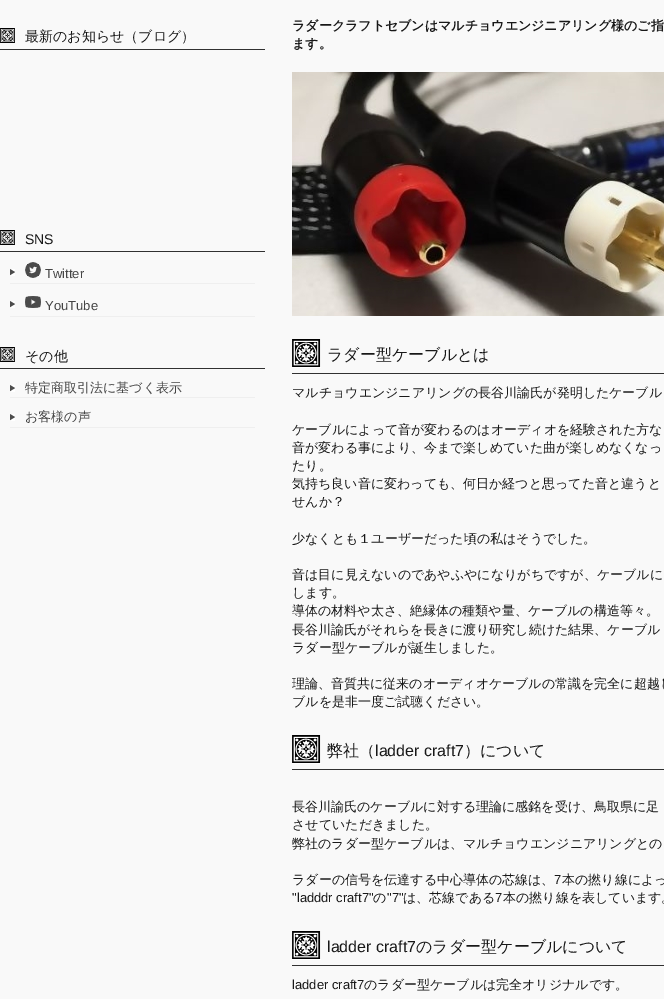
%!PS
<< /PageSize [664 999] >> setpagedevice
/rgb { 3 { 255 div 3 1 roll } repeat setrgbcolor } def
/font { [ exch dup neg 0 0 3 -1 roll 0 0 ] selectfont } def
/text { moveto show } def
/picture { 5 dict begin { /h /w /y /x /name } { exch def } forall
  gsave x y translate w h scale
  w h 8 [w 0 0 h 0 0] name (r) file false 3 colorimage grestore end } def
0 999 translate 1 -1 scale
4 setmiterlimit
249 249 249 rgb
0 0 664 999 rectfill
(img_01.rgb) 0 28 15 15 picture
49 49 49 rgb
0 49 265 1 rectfill
(img_01.rgb) 0 230 15 15 picture
0 251 265 1 rectfill
239 239 239 rgb
10 283 245 1 rectfill
(img_02.rgb) 10 269 5 7 picture
(img_03.rgb) 25 262 16 16 picture
10 316 245 1 rectfill
(img_02.rgb) 10 301 5 7 picture
(img_04.rgb) 25 296 16 12 picture
(img_01.rgb) 0 347 15 15 picture
49 49 49 rgb
0 368 265 1 rectfill
239 239 239 rgb
10 397 245 1 rectfill
(img_02.rgb) 10 385 5 7 picture
10 427 245 1 rectfill
(img_02.rgb) 10 414 5 7 picture
(img_05.rgb) 292 72 372 244 picture
(img_06.rgb) 292 339 29 29 picture
49 49 49 rgb
292 373 372 1 rectfill
(img_06.rgb) 292 735 29 29 picture
292 769 372 1 rectfill
(img_06.rgb) 292 931 29 29 picture
292 965 372 1 rectfill
/WenQuanYiZenHei-Medium 14 font
24 24 24 rgb
(最新のお知らせ（ブログ）) 25 41 text
/LiberationSans-Regular 14 font
(SNS) 25 244 text
/LiberationSans-Regular 13 font
68 68 68 rgb
(Twitter) 45 278 text
(YouTube) 45 310 text
/WenQuanYiZenHei-Medium 14 font
24 24 24 rgb
(その他) 25 361 text
/WenQuanYiZenHei-Medium 13 font
68 68 68 rgb
(特定商取引法に基づく表示) 25 392 text
(お客様の声) 25 421 text
/WenQuanYiZenHei-Bold 13 font
24 24 24 rgb
(ラダークラフトセブンはマルチョウエンジニアリング様のご指) 292 30 text
(ます。) 292 48 text
/WenQuanYiZenHei-Medium 16 font
(ラダー型ケーブルとは) 327 360 text
/WenQuanYiZenHei-Medium 13 font
(マルチョウエンジニアリングの長谷川諭氏が発明したケーブル) 292 397 text
(ケーブルによって音が変わるのはオーディオを経験された方な) 292 434 text
(音が変わる事により、今まで楽しめていた曲が楽しめなくなっ) 292 452 text
(たり。) 292 470 text
(気持ち良い音に変わっても、何日か経つと思ってた音と違うと) 292 488 text
(せんか？) 292 506 text
(少なくとも１ユーザーだった頃の私はそうでした。) 292 543 text
(音は目に見えないのであやふやになりがちですが、ケーブルに) 292 579 text
(します。) 292 597 text
(導体の材料や太さ、絶縁体の種類や量、ケーブルの構造等々。) 292 615 text
(長谷川諭氏がそれらを長きに渡り研究し続けた結果、ケーブル) 292 634 text
(ラダー型ケーブルが誕生しました。) 292 652 text
(理論、音質共に従来のオーディオケーブルの常識を完全に超越し) 292 688 text
(ブルを是非一度ご試聴ください。) 292 706 text
/WenQuanYiZenHei-Medium 16 font
(弊社（) 327 756 text
/LiberationSans-Regular 16 font
(ladder craft7) 375 756 text
/WenQuanYiZenHei-Medium 16 font
(）について) 464 756 text
/WenQuanYiZenHei-Medium 13 font
(長谷川諭氏のケーブルに対する理論に感銘を受け、鳥取県に足) 292 811 text
(させていただきました。) 292 829 text
(弊社のラダー型ケーブルは、マルチョウエンジニアリングとの) 292 848 text
(ラダーの信号を伝達する中心導体の芯線は、) 292 884 text
/LiberationSans-Regular 13 font
(7) 554 884 text
/WenQuanYiZenHei-Medium 13 font
(本の撚り線によっ) 562 884 text
/LiberationSans-Regular 13 font
("ladddr craft7") 292 902 text
/WenQuanYiZenHei-Medium 13 font
(の) 373 902 text
/LiberationSans-Regular 13 font
("7") 387 902 text
/WenQuanYiZenHei-Medium 13 font
(は、芯線である) 403 902 text
/LiberationSans-Regular 13 font
(7) 495 902 text
/WenQuanYiZenHei-Medium 13 font
(本の撚り線を表しています。) 503 902 text
/LiberationSans-Regular 16 font
(ladder craft7) 327 952 text
/WenQuanYiZenHei-Medium 16 font
(のラダー型ケーブルについて) 416 952 text
/LiberationSans-Regular 13 font
(ladder craft7) 292 989 text
/WenQuanYiZenHei-Medium 13 font
(のラダー型ケーブルは完全オリジナルです。) 364 989 text
showpage
